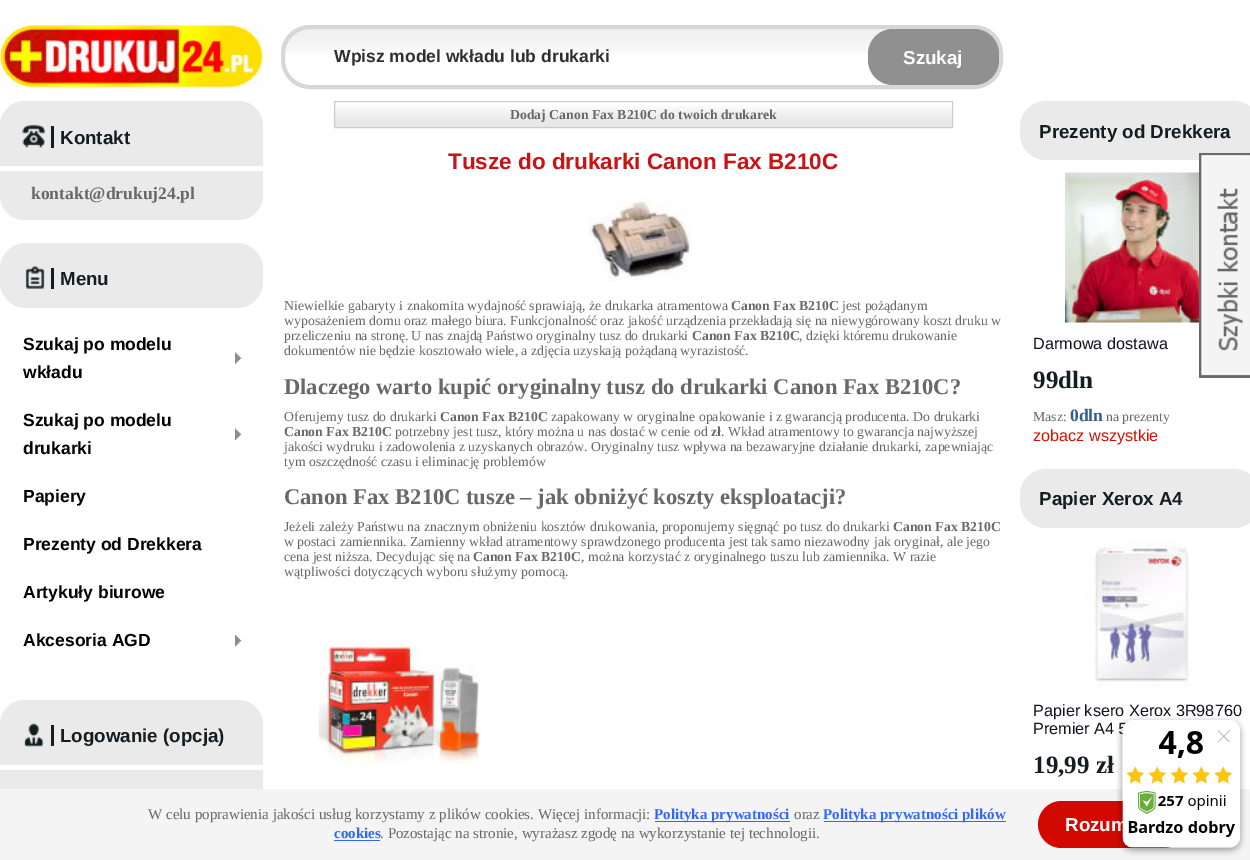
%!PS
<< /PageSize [1250 860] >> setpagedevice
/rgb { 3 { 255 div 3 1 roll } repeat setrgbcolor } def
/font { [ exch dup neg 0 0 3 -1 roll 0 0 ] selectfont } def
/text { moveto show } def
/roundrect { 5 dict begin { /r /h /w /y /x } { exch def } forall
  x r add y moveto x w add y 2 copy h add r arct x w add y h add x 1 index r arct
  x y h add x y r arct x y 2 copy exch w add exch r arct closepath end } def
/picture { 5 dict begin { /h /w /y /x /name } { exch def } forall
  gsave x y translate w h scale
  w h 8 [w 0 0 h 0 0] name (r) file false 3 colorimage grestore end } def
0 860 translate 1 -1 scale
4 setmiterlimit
255 255 255 rgb
0 0 1250 860 rectfill
(img_01.rgb) 0 25 263 63 picture
gsave
281 25 722 64 29 roundrect clip newpath
gsave 281 29 moveto 722 0 rlineto 0 56 rlineto -722 0 rlineto closepath clip newpath
<< /ShadingType 2 /ColorSpace /DeviceRGB /Coords [285 85 285 29] /Extend [true true] /Function << /FunctionType 3 /Domain [0 1] /Functions [<< /FunctionType 2 /Domain [0 1] /C0 [1 1 1] /C1 [1 1 1] /N 1 >> << /FunctionType 2 /Domain [0 1] /C0 [1 1 1] /C1 [0.961 0.961 0.961] /N 1 >> << /FunctionType 2 /Domain [0 1] /C0 [0.961 0.961 0.961] /C1 [0.941 0.941 0.941] /N 1 >>] /Bounds [0.5 0.71] /Encode [0 1 0 1 0 1] >> >> shfill grestore
grestore
215 215 215 rgb
4 setlinewidth
283 27 718 60 27 roundrect stroke
144 144 144 rgb
868 29 131 56 25 roundrect fill
234 234 234 rgb
25 101 moveto 213 0 rlineto 14 0 25 11 25 25 rcurveto 0 40 rlineto -263 0 rlineto 0 -40 rlineto 0 -14 11 -25 25 -25 rcurveto closepath fill
(img_02.rgb) 22 124 23 24 picture
20 30 32 rgb
51 126 3 22 rectfill
234 234 234 rgb
0 171 moveto 263 0 rlineto 0 24 rlineto 0 14 -11 25 -25 25 rcurveto -213 0 rlineto -14 0 -25 -11 -25 -25 rcurveto closepath fill
0 243 263 65 26 roundrect fill
(img_03.rgb) 25 266 20 23 picture
20 30 32 rgb
51 268 3 21 rectfill
(img_04.rgb) 235 352 7 12 picture
(img_05.rgb) 235 428 7 12 picture
(img_06.rgb) 235 635 7 12 picture
234 234 234 rgb
25 700 moveto 213 0 rlineto 14 0 25 11 25 25 rcurveto 0 40 rlineto -263 0 rlineto 0 -40 rlineto 0 -14 11 -25 25 -25 rcurveto closepath fill
(img_07.rgb) 24 723 20 24 picture
20 30 32 rgb
51 725 3 21 rectfill
234 234 234 rgb
0 770 263 19 rectfill
(img_08.rgb) 333 106 619 22 picture
204 204 204 rgb
1 setlinewidth
334.5 101.5 618 26 rectstroke
(img_09.rgb) 587 196 105 86 picture
(img_10.rgb) 318 636 162 130 picture
234 234 234 rgb
1020 101 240 59 26 roundrect fill
(img_11.rgb) 1065 172 134 151 picture
1020 469 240 59 26 roundrect fill
(img_12.rgb) 1085 540 105 149 picture
244 244 244 rgb
0 789 1250 71 rectfill
51 102 255 rgb
655 821 135 1 rectfill
824 821 182 1 rectfill
334 840 46 1 rectfill
210 9 0 rgb
1038 801 150 47 23.5 roundrect fill
(img_13.rgb) 1199 153 51 225 picture
/LiberationSans-Bold 17.5 font
47 47 47 rgb
(Wpisz model wkładu lub drukarki) 334 62 text
/LiberationSans-Bold 18.75 font
255 255 255 rgb
(Szukaj) 903 64 text
20 30 32 rgb
(Kontakt) 60 144 text
/LiberationSerif-Bold 17.5 font
104 104 104 rgb
(kontakt@drukuj24.pl) 31 199 text
/LiberationSans-Bold 18.75 font
20 30 32 rgb
(Menu) 60 285 text
/LiberationSans-Bold 17.5 font
0 0 0 rgb
(Szukaj po modelu) 23 350 text
(wkładu) 23 378 text
(Szukaj po modelu) 23 426 text
(drukarki) 23 454 text
(Papiery) 23 502 text
(Prezenty od Drekkera) 23 550 text
(Artykuły biurowe) 23 598 text
(Akcesoria AGD) 23 646 text
/LiberationSans-Bold 18.75 font
20 30 32 rgb
(Logowanie \(opcja\)) 60 742 text
/LiberationSerif-Bold 13.75 font
104 104 104 rgb
(Dodaj Canon Fax B210C do twoich drukarek) 510 119 text
/LiberationSans-Bold 22.5 font
200 20 20 rgb
(Tusze do drukarki Canon Fax B210C) 448 169 text
/LiberationSerif-Regular 13.75 font
104 104 104 rgb
(Niewielkie gabaryty i znakomita wydajność sprawiają, że drukarka atramentowa) 284 310 text
/LiberationSerif-Bold 13.75 font
(Canon Fax B210C) 731 310 text
/LiberationSerif-Regular 13.75 font
(jest pożądanym) 842 310 text
(wyposażeniem domu oraz małego biura. Funkcjonalność oraz jakość urządzenia przekładają się na niewygórowany koszt druku w) 284 325 text
(przeliczeniu na stronę. U nas znajdą Państwo oryginalny tusz do drukarki) 284 340 text
/LiberationSerif-Bold 13.75 font
(Canon Fax B210C) 692 340 text
/LiberationSerif-Regular 13.75 font
(, dzięki któremu drukowanie) 799 340 text
(dokumentów nie będzie kosztowało wiele, a zdjęcia uzyskają pożądaną wyrazistość.) 284 355 text
/LiberationSerif-Bold 22.5 font
(Dlaczego warto kupić oryginalny tusz do drukarki Canon Fax B210C?) 284 394 text
/LiberationSerif-Regular 13.75 font
(Oferujemy tusz do drukarki) 284 421 text
/LiberationSerif-Bold 13.75 font
(Canon Fax B210C) 440 421 text
/LiberationSerif-Regular 13.75 font
(zapakowany w oryginalne opakowanie i z gwarancją producenta. Do drukarki) 551 421 text
/LiberationSerif-Bold 13.75 font
(Canon Fax B210C) 284 436 text
/LiberationSerif-Regular 13.75 font
(potrzebny jest tusz, który można u nas dostać w cenie od) 395 436 text
/LiberationSerif-Bold 13.75 font
(zł) 711 436 text
/LiberationSerif-Regular 13.75 font
(. Wkład atramentowy to gwarancja najwyższej) 721 436 text
(jakości wydruku i zadowolenia z uzyskanych obrazów. Oryginalny tusz wpływa na bezawaryjne działanie drukarki, zapewniając) 284 451 text
(tym oszczędność czasu i eliminację problemów) 284 466 text
/LiberationSerif-Bold 22.5 font
(Canon Fax B210C tusze – jak obniżyć koszty eksploatacji?) 284 504 text
/LiberationSerif-Regular 13.75 font
(Jeżeli zależy Państwu na znacznym obniżeniu kosztów drukowania, proponujemy sięgnąć po tusz do drukarki) 284 531 text
/LiberationSerif-Bold 13.75 font
(Canon Fax B210C) 893 531 text
/LiberationSerif-Regular 13.75 font
(w postaci zamiennika. Zamienny wkład atramentowy sprawdzonego producenta jest tak samo niezawodny jak oryginał, ale jego) 284 546 text
(cena jest niższa. Decydując się na) 284 561 text
/LiberationSerif-Bold 13.75 font
(Canon Fax B210C) 473 561 text
/LiberationSerif-Regular 13.75 font
(, można korzystać z oryginalnego tuszu lub zamiennika. W razie) 581 561 text
(wątpliwości dotyczących wyboru służymy pomocą.) 284 576 text
/LiberationSans-Bold 18.75 font
20 30 32 rgb
(Prezenty od Drekkera) 1039 138 text
/LiberationSans-Regular 16.25 font
20 18 32 rgb
(Darmowa dostawa) 1033 349 text
/LiberationSerif-Bold 25 font
20 30 32 rgb
(99dln) 1033 388 text
/LiberationSerif-Regular 13.75 font
104 104 104 rgb
(Masz:) 1033 421 text
/LiberationSerif-Bold 17.5 font
51 94 139 rgb
(0dln) 1070 421 text
/LiberationSerif-Regular 13.75 font
104 104 104 rgb
(na prezenty) 1106 421 text
/LiberationSans-Regular 16.25 font
208 16 2 rgb
(zobacz wszystkie) 1033 441 text
/LiberationSans-Bold 18.75 font
20 30 32 rgb
(Papier Xerox A4) 1039 505 text
/LiberationSans-Regular 16.25 font
20 18 32 rgb
(Papier ksero Xerox 3R98760) 1033 716 text
(Premier A4 5) 1033 734 text
/LiberationSerif-Bold 25 font
20 30 32 rgb
(19,99 zł) 1033 773 text
/LiberationSerif-Regular 15 font
104 104 104 rgb
(W celu poprawienia jakości usług korzystamy z plików cookies. Więcej informacji:) 148 819 text
/LiberationSerif-Bold 15 font
51 102 255 rgb
(Polityka prywatności) 654 819 text
/LiberationSerif-Regular 15 font
104 104 104 rgb
(oraz) 794 819 text
/LiberationSerif-Bold 15 font
51 102 255 rgb
(Polityka prywatności plików) 823 819 text
(cookies) 334 838 text
/LiberationSerif-Regular 15 font
104 104 104 rgb
(. Pozostając na stronie, wyrażasz zgodę na wykorzystanie tej technologii.) 380 838 text
/LiberationSans-Bold 18.75 font
255 255 255 rgb
(Rozum) 1065 831 text
(img_14.rgb) 1116 716 130 140 picture
showpage
